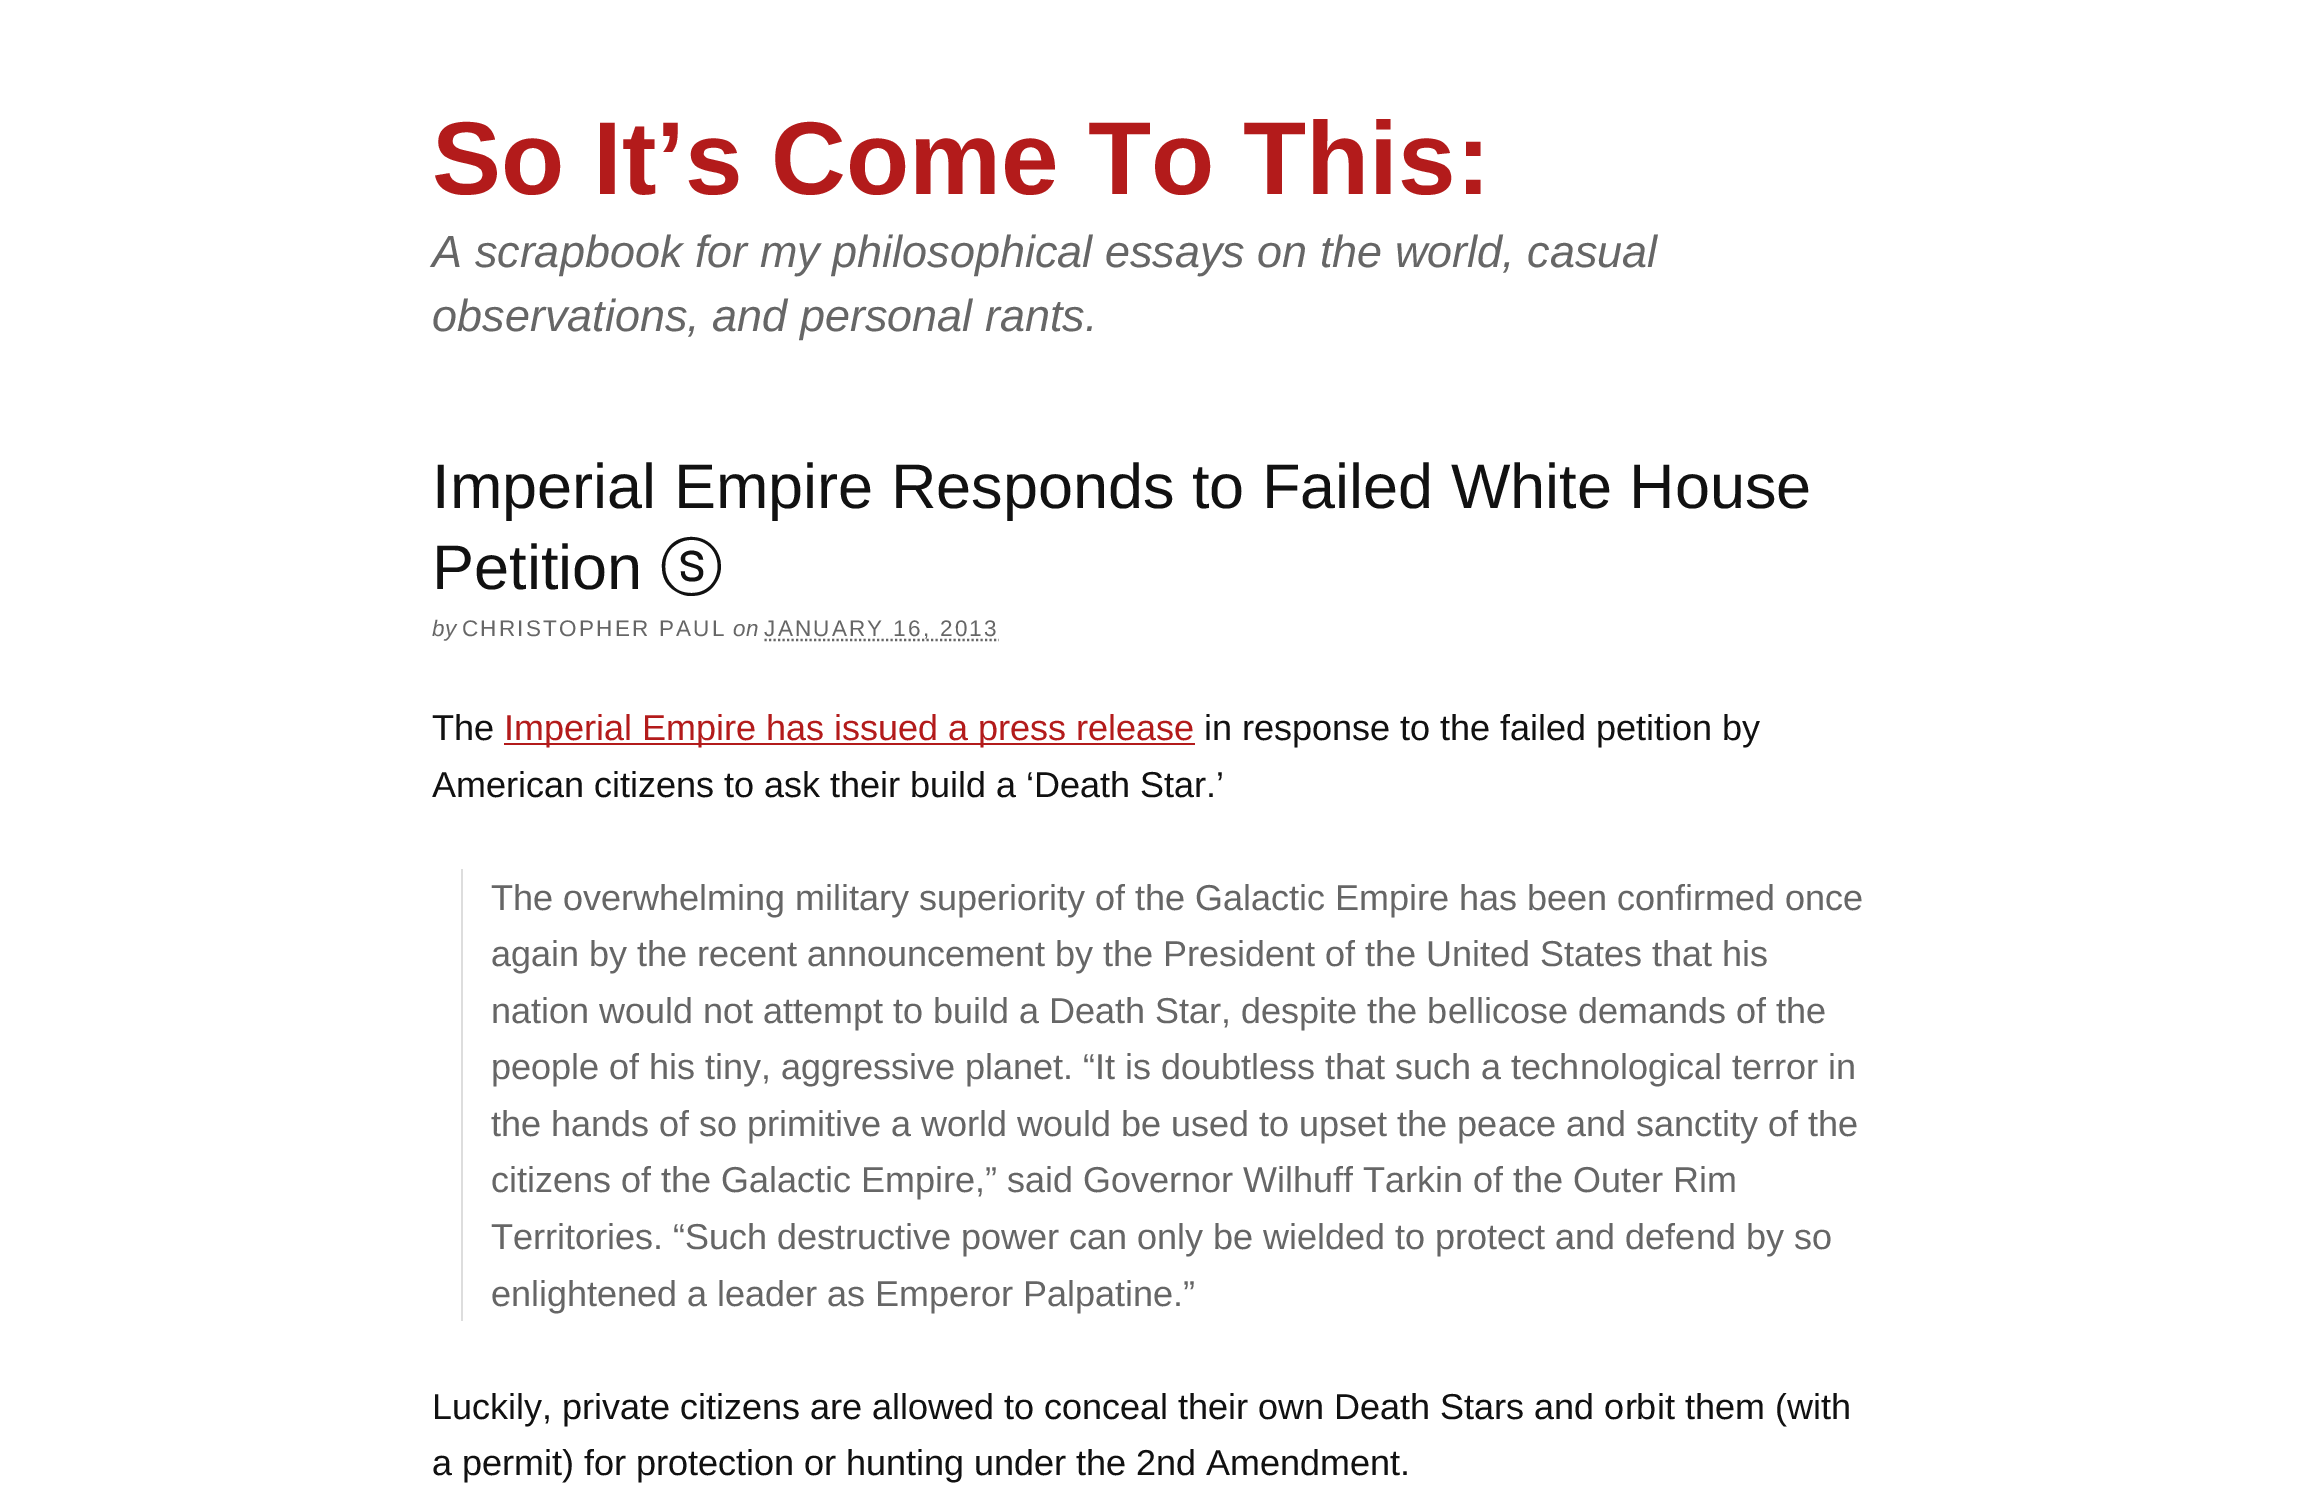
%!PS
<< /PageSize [2302 1503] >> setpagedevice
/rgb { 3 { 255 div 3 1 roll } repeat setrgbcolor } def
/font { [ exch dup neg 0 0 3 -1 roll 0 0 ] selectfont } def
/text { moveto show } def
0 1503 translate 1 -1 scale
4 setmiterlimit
255 255 255 rgb
0 0 2302 1503 rectfill
102 102 102 rgb
2.2 setlinewidth
[2.25 2.25] 0 setdash
764.5 640 moveto 234.5 0 rlineto stroke
179 27 27 rgb
504 743 691 2 rectfill
221 221 221 rgb
461 869 2 452 rectfill
/LiberationSans-Bold 103.5 font
179 27 27 rgb
(So It’s Come To This:) 432 194 text
/LiberationSans-Italic 45 font
102 102 102 rgb
(A scrapbook for my philosophical essays on the world, casual) 432 267 text
(observations, and personal rants.) 432 331 text
/LiberationSans-Regular 63 font
17 17 17 rgb
(Imperial Empire Responds to Failed White House) 432 508 text
(Petition) 432 589 text
/WenQuanYiZenHei-Medium 63 font
(ⓢ) 660 589 text
/LiberationSans-Italic 22.5 font
102 102 102 rgb
(by) 432 636 text
/LiberationSans-Regular 22.5 font
462 636 moveto 2.25 0 (CHRISTOPHER PAUL) ashow
/LiberationSans-Italic 22.5 font
(on) 733 636 text
/LiberationSans-Regular 22.5 font
764 636 moveto 2.25 0 (JANUARY 16, 2013) ashow
/LiberationSans-Regular 36 font
17 17 17 rgb
(The) 432 740 text
179 27 27 rgb
(Imperial Empire has issued a press release) 504 740 text
17 17 17 rgb
(in response to the failed petition by) 1204 740 text
(American citizens to ask their build a ‘Death Star.’) 432 797 text
102 102 102 rgb
(The overwhelming military superiority of the Galactic Empire has been confirmed once) 491 910 text
(again by the recent announcement by the President of the United States that his) 491 966 text
(nation would not attempt to build a Death Star, despite the bellicose demands of the) 491 1023 text
(people of his tiny, aggressive planet. “It is doubtless that such a technological terror in) 491 1079 text
(the hands of so primitive a world would be used to upset the peace and sanctity of the) 491 1136 text
(citizens of the Galactic Empire,” said Governor Wilhuff Tarkin of the Outer Rim) 491 1192 text
(Territories. “Such destructive power can only be wielded to protect and defend by so) 491 1249 text
(enlightened a leader as Emperor Palpatine.”) 491 1306 text
17 17 17 rgb
(Luckily, private citizens are allowed to conceal their own Death Stars and orbit them \(with) 432 1419 text
(a permit\) for protection or hunting under the 2nd Amendment.) 432 1475 text
showpage
